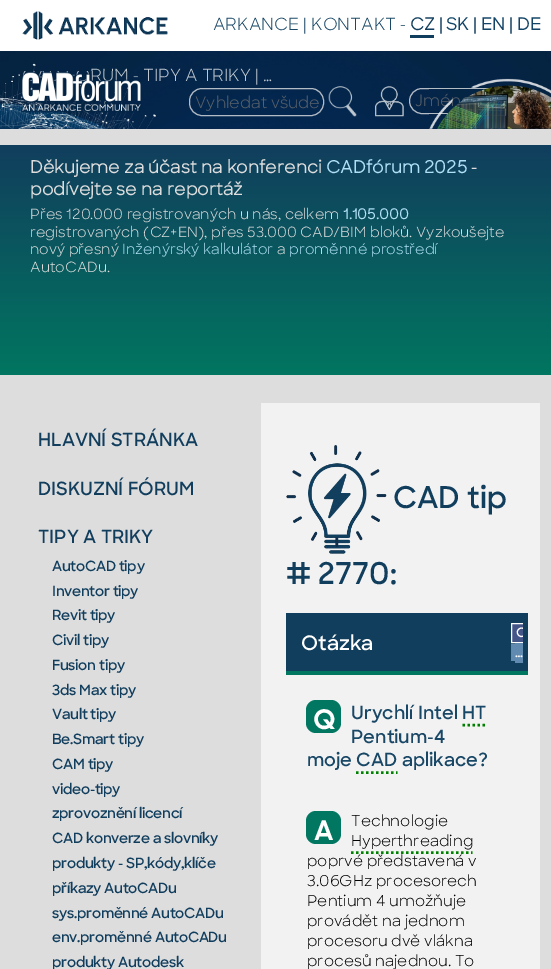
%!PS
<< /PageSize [551 969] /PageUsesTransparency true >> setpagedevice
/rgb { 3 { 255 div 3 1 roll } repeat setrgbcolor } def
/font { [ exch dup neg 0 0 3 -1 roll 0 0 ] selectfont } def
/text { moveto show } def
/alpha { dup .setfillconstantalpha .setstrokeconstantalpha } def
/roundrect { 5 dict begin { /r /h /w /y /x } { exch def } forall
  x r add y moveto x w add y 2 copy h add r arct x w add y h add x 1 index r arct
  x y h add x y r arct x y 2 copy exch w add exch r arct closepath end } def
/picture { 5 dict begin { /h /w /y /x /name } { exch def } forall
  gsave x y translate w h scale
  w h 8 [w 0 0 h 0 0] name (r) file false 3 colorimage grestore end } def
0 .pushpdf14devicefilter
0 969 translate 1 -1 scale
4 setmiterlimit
255 255 255 rgb
0 0 551 969 rectfill
(img_01.rgb) 22 11 146 29 picture
17 62 92 rgb
410 35 24 3 rectfill
(img_02.rgb) 0 51 551 78 picture
0.75 alpha
238 238 238 rgb
189.5 88.5 134 27 12.5 roundrect stroke
1 alpha
(img_04.rgb) 328 86 29 31 picture
(img_05.rgb) 375 86 29 31 picture
0.75 alpha
409.5 88.5 120 25 12.5 roundrect stroke
1 alpha
221 221 221 rgb
0 129 551 16 rectfill
gsave 0 145 moveto 551 0 rlineto 0 230 rlineto -551 0 rlineto closepath clip newpath
<< /ShadingType 2 /ColorSpace /DeviceRGB /Coords [276 145 276 375] /Extend [true true] /Function << /FunctionType 2 /Domain [0 1] /C0 [0.067 0.243 0.365] /C1 [0.004 0.463 0.376] /N 1 >> >> shfill grestore
0 375 551 594 rectfill
242 242 242 rgb
261 403 279 566 rectfill
(img_08.rgb) 286 445 101 109 picture
17 62 92 rgb
286 613 242 58 rectfill
1 118 96 rgb
286 671 242 4 rectfill
68 85 136 rgb
512 624 11 18 rectfill
gsave
511 623 12 40 rectclip
255 255 255 rgb
511.5 623.5 38 19 rectstroke
grestore
96 138 176 rgb
511 644 4 17 rectfill
515 643 8 20 rectfill
0 128 0 rgb
2.5 setlinewidth
[2.5 2.5] 0 setdash
462.5 725 moveto 25 0 rlineto stroke
356 772.5 moveto 41.5 0 rlineto stroke
1 118 96 rgb
306 700 35 33 10 roundrect fill
0 128 0 rgb
351 852.5 moveto 121.5 0 rlineto stroke
1 118 96 rgb
306 811 35 33 10 roundrect fill
/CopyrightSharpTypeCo-Regular 16.75 font
25 71 102 rgb
(ARKANCE) 213 30 text
17 62 93 rgb
(|) 303 30 text
25 71 102 rgb
(KONTAKT) 311 30 text
17 62 93 rgb
(-) 400 30 text
/CopyrightSharpTypeCo-Bold 16.75 font
(CZ |) 410 30 text
17 68 102 rgb
(SK) 446 30 text
17 62 93 rgb
(|) 473 30 text
17 68 102 rgb
(EN) 481 30 text
17 62 93 rgb
(|) 509 30 text
17 68 102 rgb
(DE) 517 30 text
/CopyrightSharpTypeCo-Regular 16.75 font
192 200 209 rgb
(RUM - TIPY A TRIKY | …) 90 81 text
(img_03.rgb) 21 71 121 42 picture
/CopyrightSharpTypeCo-Regular 15.75 font
89 97 106 rgb
(Vyhledat všude) 195 108 text
(Jm) 415 106 text
(img_06.rgb) 429 78 122 51 picture
(img_07.rgb) 437 85 114 44 picture
/CopyrightSharpTypeCo-Bold 17 font
221 221 221 rgb
(Děkujeme za účast na konferenci) 30 173 text
176 224 246 rgb
(CADfórum 2025) 326 173 text
221 221 221 rgb
(-) 471 173 text
(podívejte se na reportáž) 30 195 text
/CopyrightSharpTypeCo-Regular 14.15 font
(Přes 120.000 registrovaných u nás, celkem) 30 219 text
/CopyrightSharpTypeCo-Bold 14.15 font
176 224 246 rgb
(1.105.000) 343 219 text
/CopyrightSharpTypeCo-Regular 14.15 font
221 221 221 rgb
(registrovaných \(CZ+EN\), přes 53.000 CAD/BIM bloků. Vyzkoušejte) 30 237 text
(nový přesný) 30 254 text
176 224 246 rgb
(Inženýrský kalkulátor) 122 254 text
221 221 221 rgb
(a) 277 254 text
176 224 246 rgb
(proměnné prostředí) 289 254 text
221 221 221 rgb
(AutoCADu.) 30 272 text
/CopyrightSharpTypeCo-SemiBold 18.25 font
17 62 93 rgb
(HLAVNÍ STRÁNKA) 38 446 text
(DISKUZNÍ FÓRUM) 38 495 text
(TIPY A TRIKY) 38 543 text
/CopyrightSharpTypeCo-SemiBold 14.15 font
52 571 moveto -0.3 0 (AutoCAD tipy) ashow
52 596 moveto -0.3 0 (Inventor tipy) ashow
52 620 moveto -0.3 0 (Revit tipy) ashow
52 645 moveto -0.3 0 (Civil tipy) ashow
52 670 moveto -0.3 0 (Fusion tipy) ashow
52 695 moveto -0.3 0 (3ds Max tipy) ashow
52 719 moveto -0.3 0 (Vault tipy) ashow
52 744 moveto -0.3 0 (Be.Smart tipy) ashow
52 769 moveto -0.3 0 (CAM tipy) ashow
52 794 moveto -0.3 0 (video-tipy) ashow
52 818 moveto -0.3 0 (zprovoznění licencí) ashow
52 843 moveto -0.3 0 (CAD konverze a slovníky) ashow
52 868 moveto -0.3 0 (produkty - SP,kódy,klíče) ashow
52 893 moveto -0.3 0 (příkazy AutoCADu) ashow
52 918 moveto -0.3 0 (sys.proměnné AutoCADu) ashow
52 942 moveto -0.3 0 (env.proměnné AutoCADu) ashow
52 967 moveto -0.3 0 (produkty Autodesk) ashow
/CopyrightSharpTypeCo-SemiBold 30 font
(CAD tip) 393 508 text
(# 2770:) 286 584 text
/CopyrightSharpTypeCo-SemiBold 20 font
255 255 255 rgb
(Otázka) 301 650 text
gsave
511 623 12 40 rectclip
/CopyrightSharpTypeCo-SemiBold 13 font
(C) 516 637 text
grestore
/CopyrightSharpTypeCo-SemiBold 13 font
(…) 515 657 text
/CopyrightSharpTypeCo-SemiBold 18.25 font
25 71 102 rgb
(Urychlí Intel HT) 351 719 text
(Pentium-4) 351 743 text
(moje CAD aplikace?) 307 766 text
/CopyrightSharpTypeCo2-Bold 27 font
255 255 255 rgb
(Q) 313 729 text
/CopyrightSharpTypeCo-Regular 15 font
0 0 0 rgb
(Technologie) 351 826 text
(Hyperthreading) 351 846 text
(poprvé představená v) 307 866 text
(3.06GHz procesorech) 307 886 text
(Pentium 4 umožňuje) 307 906 text
(provádět na jednom) 307 926 text
(procesoru dvě vlákna) 307 946 text
(procesů najednou. To) 307 966 text
/CopyrightSharpTypeCo2-Bold 27 font
255 255 255 rgb
(A) 314 840 text
.poppdf14devicefilter showpage
